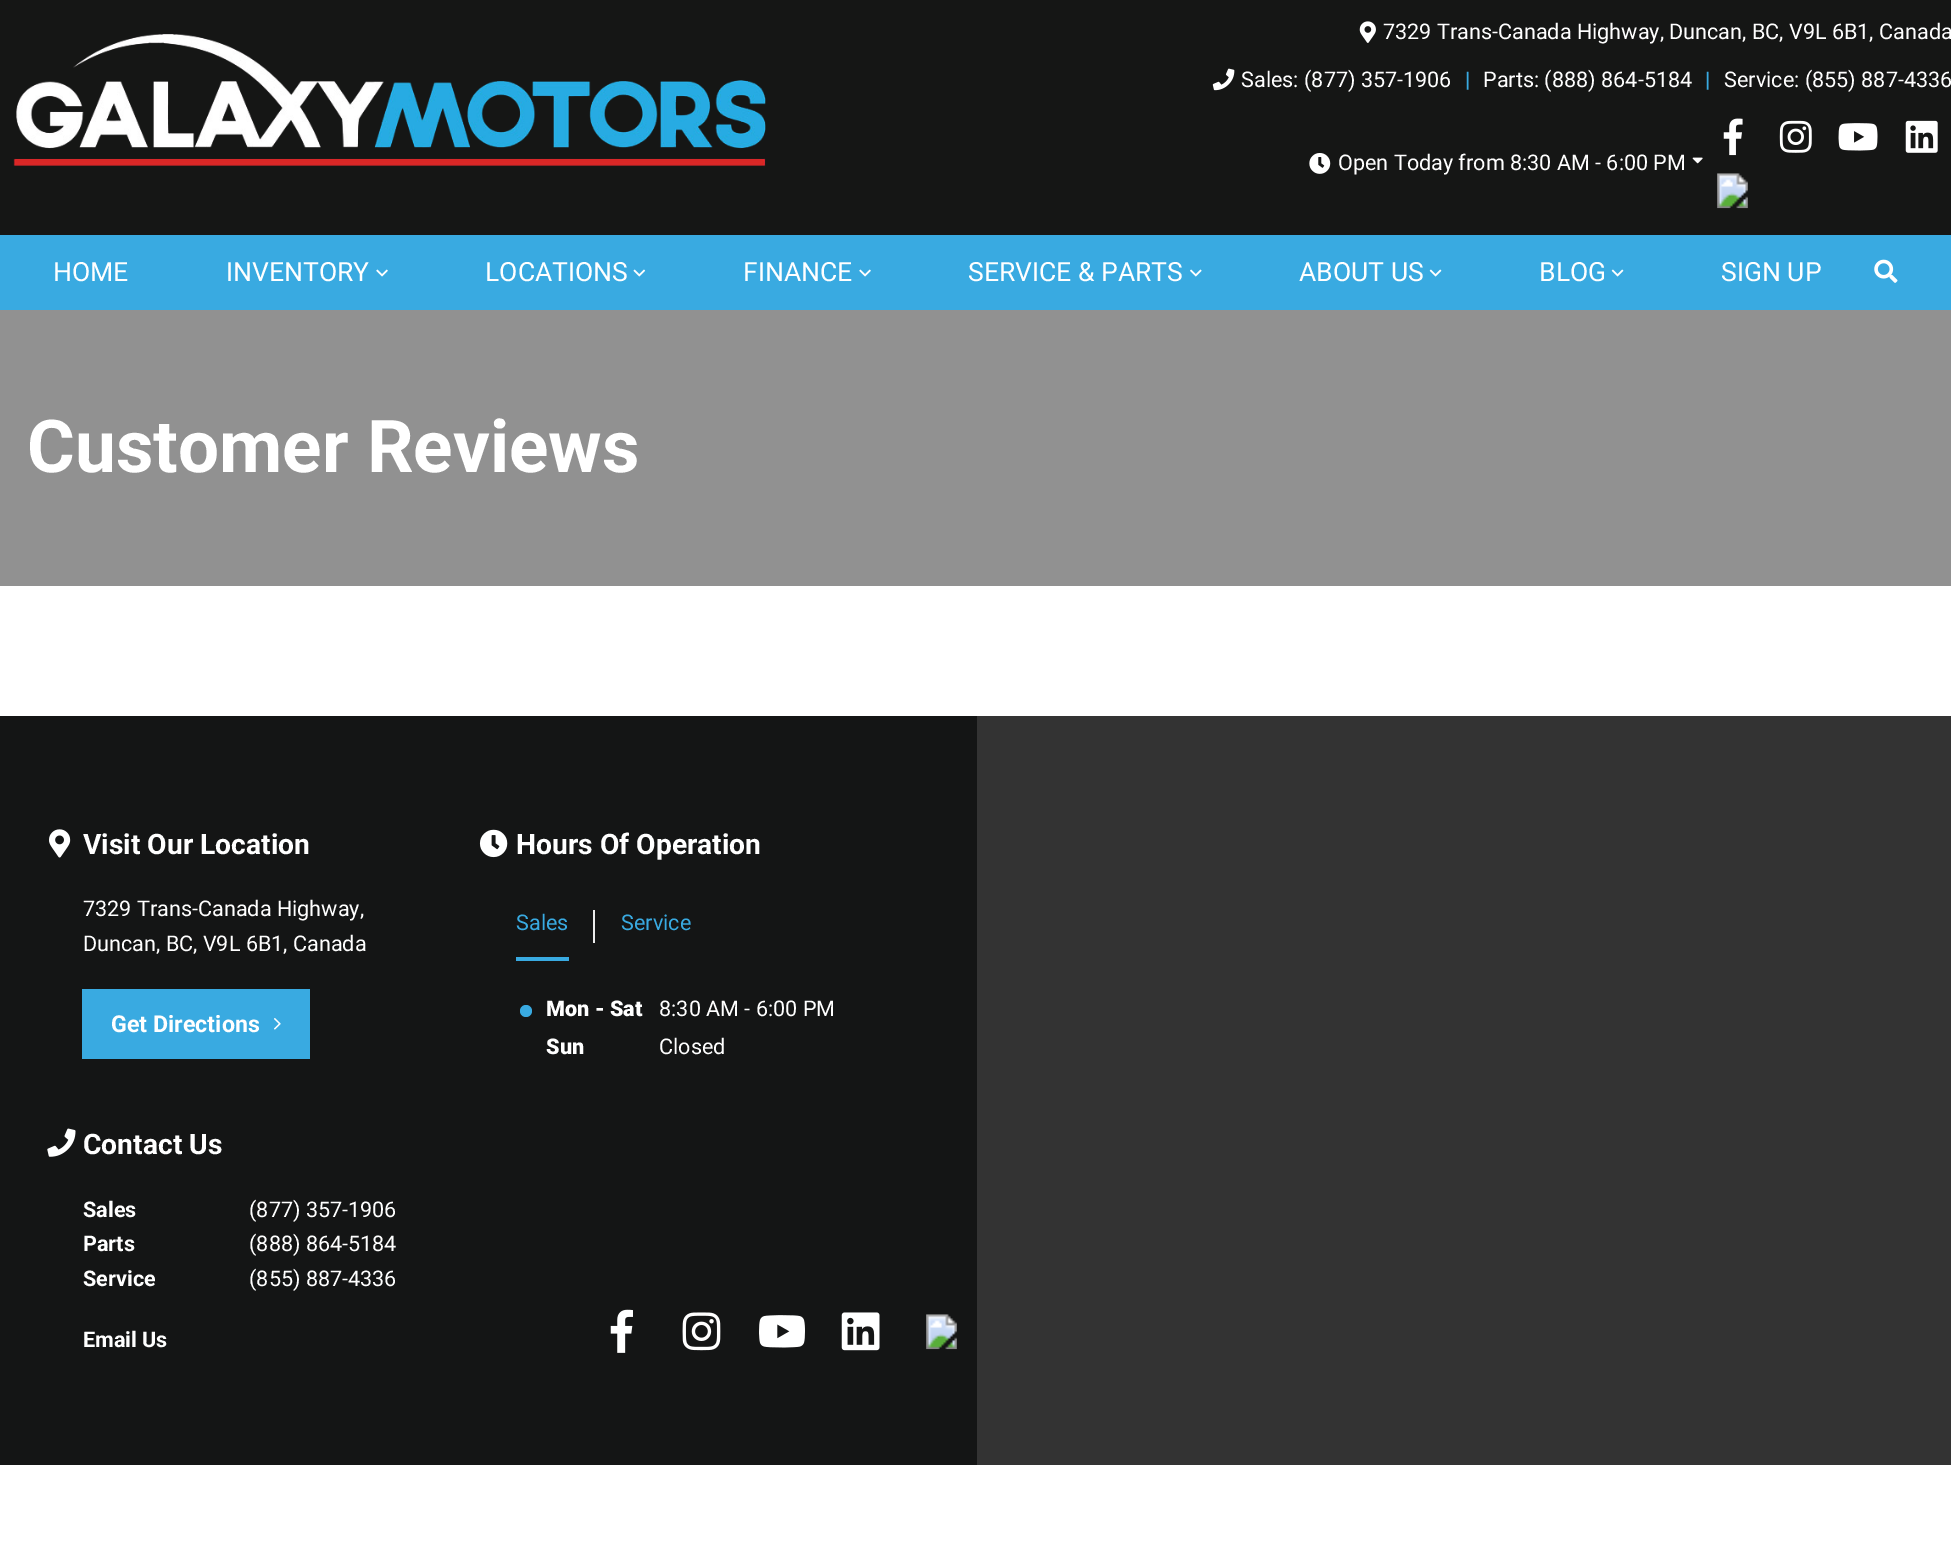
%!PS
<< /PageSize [1951 1552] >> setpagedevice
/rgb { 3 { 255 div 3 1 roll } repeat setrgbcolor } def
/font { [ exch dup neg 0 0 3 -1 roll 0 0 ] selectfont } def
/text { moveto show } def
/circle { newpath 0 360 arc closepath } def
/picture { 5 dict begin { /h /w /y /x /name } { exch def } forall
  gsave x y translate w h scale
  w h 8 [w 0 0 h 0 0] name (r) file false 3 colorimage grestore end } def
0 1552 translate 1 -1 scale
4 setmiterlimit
255 255 255 rgb
0 0 1951 1552 rectfill
21 22 21 rgb
0 0 1951 235 rectfill
(img_01.rgb) 13 34 753 133 picture
(img_02.rgb) 1359 21 17 22 picture
(img_03.rgb) 1212 68 23 23 picture
(img_04.rgb) 1309 153 22 21 picture
(img_05.rgb) 1692 157 11 7 picture
(img_06.rgb) 1723 118 20 38 picture
(img_07.rgb) 1779 120 33 33 picture
(img_08.rgb) 1838 123 40 28 picture
(img_09.rgb) 1905 120 33 33 picture
(img_10.rgb) 1717 173 31 36 picture
57 170 225 rgb
0 235 1951 75 rectfill
(img_11.rgb) 376 269 12 8 picture
(img_12.rgb) 633 269 13 8 picture
(img_11.rgb) 859 269 12 8 picture
(img_13.rgb) 1190 269 12 8 picture
(img_14.rgb) 1429 269 13 8 picture
(img_14.rgb) 1611 269 13 8 picture
(img_15.rgb) 1874 259 24 24 picture
145 145 145 rgb
0 310 1951 276 rectfill
20 21 21 rgb
0 716 977 749 rectfill
(img_16.rgb) 49 829 22 29 picture
57 170 225 rgb
82 989 228 70 rectfill
(img_17.rgb) 274 1018 7 12 picture
(img_18.rgb) 479 829 29 29 picture
516 957 53 4 rectfill
236 236 236 rgb
593 910 2 33 rectfill
57 170 225 rgb
526 1011 6 circle fill
(img_19.rgb) 47 1128 29 29 picture
(img_20.rgb) 610 1309 23 44 picture
(img_21.rgb) 682 1312 39 39 picture
(img_22.rgb) 759 1315 46 33 picture
(img_23.rgb) 841 1312 39 39 picture
(img_24.rgb) 926 1314 31 36 picture
51 51 51 rgb
977 716 974 749 rectfill
/Roboto-Regular 21.6 font
255 255 255 rgb
(7329 Trans-Canada Highway, Duncan, BC, V9L 6B1, Canada) 1383 39 text
(Sales: \(877\) 357-1906) 1241 87 text
57 170 225 rgb
(|) 1465 87 text
255 255 255 rgb
(Parts: \(888\) 864-5184) 1483 87 text
57 170 225 rgb
(|) 1705 87 text
255 255 255 rgb
(Service: \(855\) 887-4336) 1724 87 text
(Open Today from 8:30 AM - 6:00 PM) 1338 170 text
/Roboto-Regular 26.5 font
(HOME) 53 281 text
(INVENTORY) 226 281 text
(LOCATIONS) 485 281 text
(FINANCE) 743 281 text
(SERVICE & PARTS) 968 281 text
(ABOUT US) 1299 281 text
(BLOG) 1539 281 text
(SIGN UP) 1721 281 text
/Roboto-Bold 73 font
(Customer Reviews) 27 472 text
/Roboto-Bold 28.25 font
(Visit Our Location) 83 854 text
/Roboto-Regular 21.6 font
(7329 Trans-Canada Highway,) 83 916 text
(Duncan, BC, V9L 6B1, Canada) 83 951 text
/Roboto-Bold 23.25 font
(Get Directions) 111 1032 text
/Roboto-Bold 28.25 font
(Hours Of Operation) 516 854 text
/Roboto-Regular 21.6 font
57 170 225 rgb
(Sales) 516 930 text
(Service) 621 930 text
/Roboto-Black 21.6 font
255 255 255 rgb
(Mon - Sat) 546 1016 text
/Roboto-Regular 21.6 font
(8:30 AM - 6:00 PM) 659 1016 text
/Roboto-Black 21.6 font
(Sun) 546 1054 text
/Roboto-Regular 21.6 font
(Closed) 659 1054 text
/Roboto-Bold 28.25 font
(Contact Us) 83 1154 text
/Roboto-Bold 21.6 font
(Sales) 83 1217 text
/Roboto-Regular 21.6 font
(\(877\) 357-1906) 249 1217 text
/Roboto-Bold 21.6 font
(Parts) 83 1251 text
/Roboto-Regular 21.6 font
(\(888\) 864-5184) 249 1251 text
/Roboto-Bold 21.6 font
(Service) 83 1286 text
/Roboto-Regular 21.6 font
(\(855\) 887-4336) 249 1286 text
/Roboto-Bold 21.6 font
(Email Us) 83 1347 text
showpage
